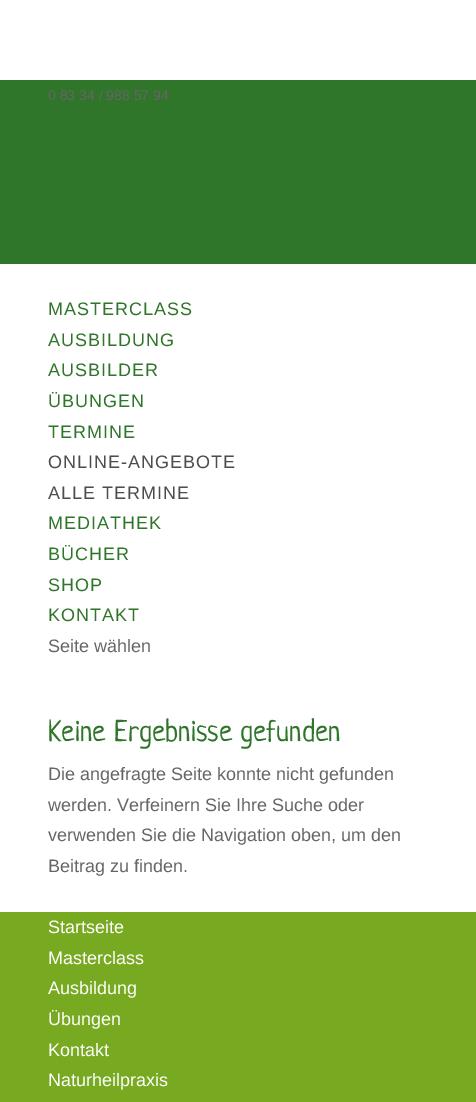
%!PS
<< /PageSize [476 1102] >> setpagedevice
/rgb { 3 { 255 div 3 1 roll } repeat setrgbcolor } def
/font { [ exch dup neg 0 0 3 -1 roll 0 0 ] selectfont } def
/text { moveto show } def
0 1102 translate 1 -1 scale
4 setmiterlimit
255 255 255 rgb
0 0 476 1102 rectfill
47 117 42 rgb
0 80 476 184 rectfill
119 169 33 rgb
0 912 476 190 rectfill
/LiberationSans-Regular 14 font
102 102 102 rgb
(0 83 34 / 988 57 94) 48 100 text
/LiberationSans-Regular 18 font
47 117 42 rgb
48 315 moveto 1 0 (MASTERCLASS) ashow
48 346 moveto 1 0 (AUSBILDUNG) ashow
48 376 moveto 1 0 (AUSBILDER) ashow
48 407 moveto 1 0 (ÜBUNGEN) ashow
48 438 moveto 1 0 (TERMINE) ashow
77 77 77 rgb
48 468 moveto 1 0 (ONLINE-ANGEBOTE) ashow
48 499 moveto 1 0 (ALLE TERMINE) ashow
47 117 42 rgb
48 529 moveto 1 0 (MEDIATHEK) ashow
48 560 moveto 1 0 (BÜCHER) ashow
48 591 moveto 1 0 (SHOP) ashow
48 621 moveto 1 0 (KONTAKT) ashow
102 102 102 rgb
(Seite wählen) 48 652 text
/Neucha-Regular 30 font
47 117 42 rgb
(Keine Ergebnisse gefunden) 48 741 text
/LiberationSans-Regular 18 font
102 102 102 rgb
(Die angefragte Seite konnte nicht gefunden) 48 780 text
(werden. Verfeinern Sie Ihre Suche oder) 48 811 text
(verwenden Sie die Navigation oben, um den) 48 841 text
(Beitrag zu finden.) 48 872 text
255 255 255 rgb
(Startseite) 48 933 text
(Masterclass) 48 964 text
(Ausbildung) 48 994 text
(Übungen) 48 1025 text
(Kontakt) 48 1056 text
(Naturheilpraxis) 48 1086 text
showpage
